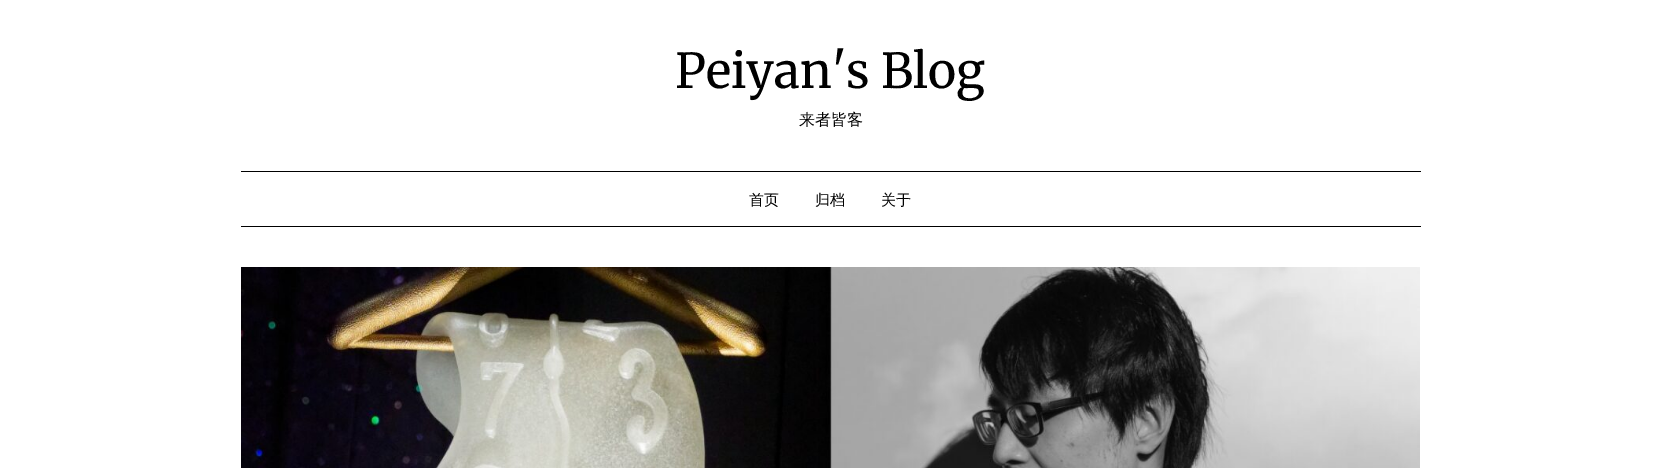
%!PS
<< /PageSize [1661 468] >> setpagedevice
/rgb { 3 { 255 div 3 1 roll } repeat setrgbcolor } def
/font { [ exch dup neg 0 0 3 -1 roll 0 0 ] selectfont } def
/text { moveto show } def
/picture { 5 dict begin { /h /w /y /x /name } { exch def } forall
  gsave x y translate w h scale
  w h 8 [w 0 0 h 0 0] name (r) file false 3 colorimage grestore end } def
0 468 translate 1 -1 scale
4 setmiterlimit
255 255 255 rgb
0 0 1661 468 rectfill
0 0 0 rgb
241 171 1180 1 rectfill
241 226 1180 1 rectfill
(img_01.rgb) 241 267 1179 201 picture
/Merriweather-Regular 48 font
(Peiyan's Blog) 675 88 text
/WenQuanYiZenHei-Medium 16 font
(来者皆客) 799 125 text
/WenQuanYiZenHei-Medium 15 font
(首页) 749 205 text
(归档) 815 205 text
(关于) 881 205 text
showpage
